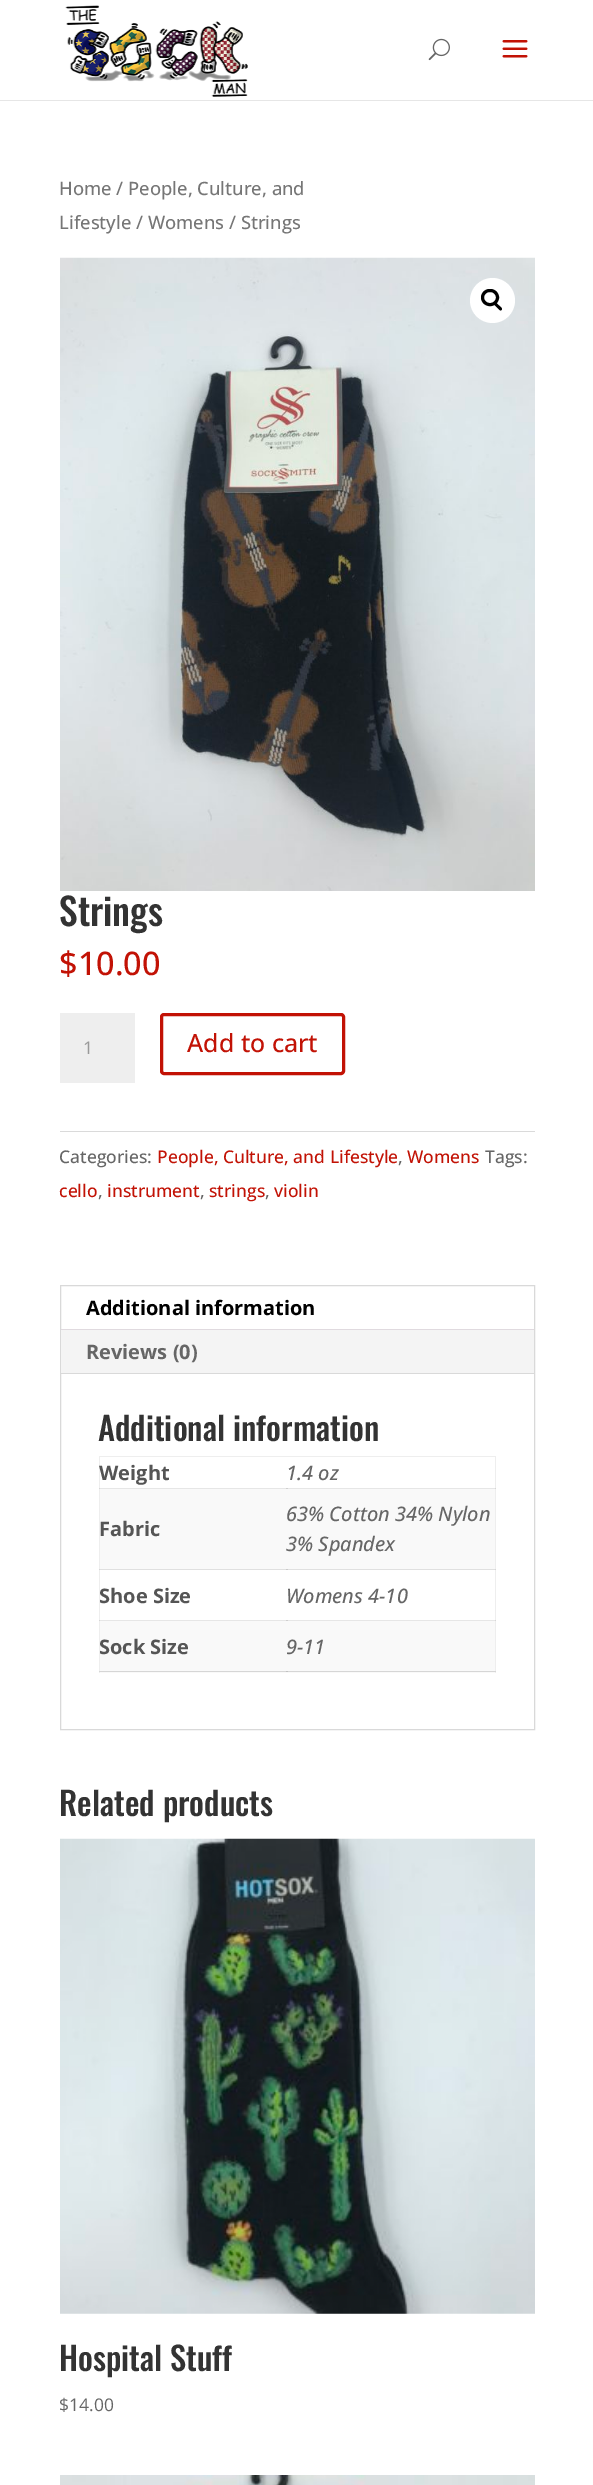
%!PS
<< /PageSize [593 2485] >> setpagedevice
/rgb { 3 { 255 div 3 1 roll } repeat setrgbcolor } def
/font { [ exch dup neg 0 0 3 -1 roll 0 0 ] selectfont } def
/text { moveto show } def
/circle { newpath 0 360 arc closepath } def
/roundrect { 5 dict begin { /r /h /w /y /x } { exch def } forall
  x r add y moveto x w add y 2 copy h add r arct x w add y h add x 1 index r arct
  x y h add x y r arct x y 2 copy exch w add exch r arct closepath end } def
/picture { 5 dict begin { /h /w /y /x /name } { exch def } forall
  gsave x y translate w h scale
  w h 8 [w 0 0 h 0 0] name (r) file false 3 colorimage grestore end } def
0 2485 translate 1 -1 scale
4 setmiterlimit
255 255 255 rgb
0 0 593 2485 rectfill
230 230 230 rgb
99 1488 397 1 rectfill
207 207 207 rgb
286 1488 2 1 rectfill
230 230 230 rgb
99 1620 397 1 rectfill
207 207 207 rgb
286 1620 2 1 rectfill
230 230 230 rgb
0 100 moveto 0 1 rlineto 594 0 rlineto 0 -100 rlineto 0 99 rlineto closepath fill
(img_01.rgb) 65 5 183 92 picture
(img_02.rgb) 428 38 22 23 picture
(img_03.rgb) 502 40 26 18 picture
(img_04.rgb) 60 257 475 634 picture
255 255 255 rgb
492.5 300.5 22.5 circle fill
0 0 0 rgb
3 setlinewidth
482.5 290.5 15 14 7 roundrect stroke
494.5 303 moveto 1.5 -1.5 3.5 2 4.5 2.5 rcurveto 1 1 4 3 2.5 4.5 rcurveto -1.5 1.5 -3.5 -2 -4.5 -2.5 rcurveto -0.5 -1 -4 -3 -2.5 -4.5 rcurveto closepath fill
238 238 238 rgb
60 1013 75 70 rectfill
194 18 5 rgb
161.5 1014.5 182 59 2.5 roundrect stroke
218 218 218 rgb
60 1131 475 1 rectfill
217 217 217 rgb
1 setlinewidth
60.5 1285.5 474 444 rectstroke
244 244 244 rgb
61 1330 473 43 rectfill
224 218 223 rgb
61 1329 473 1 rectfill
217 217 217 rgb
61 1373 473 1 rectfill
238 238 238 rgb
99 1456 397 1 rectfill
495 1456 1 217 rectfill
214 214 214 rgb
495 1488 1 1 rectfill
495 1569 1 1 rectfill
495 1620 1 1 rectfill
249 249 249 rgb
100 1621 395 52 rectfill
214 214 214 rgb
99 1671 397 1 rectfill
224 224 224 rgb
99 1569 396 1 rectfill
238 238 238 rgb
99 1456 1 217 rectfill
214 214 214 rgb
99 1488 1 1 rectfill
99 1569 1 1 rectfill
99 1620 1 1 rectfill
99 1671 1 1 rectfill
249 249 249 rgb
100 1489 395 80 rectfill
202 202 202 rgb
286 1569 2 1 rectfill
193 193 193 rgb
286 1671 2 1 rectfill
(img_05.rgb) 60 1838 475 476 picture
(img_06.rgb) 60 2475 475 10 picture
/OpenSans-Medium 18.4 font
118 118 118 rgb
(Home / People, Culture, and) 59 195 text
(Lifestyle / Womens / Strings) 59 229 text
/Oswald-Medium 37.5 font
51 51 51 rgb
(Strings) 59 926 text
/OpenSans-Medium 32.5 font
194 18 5 rgb
($10.00) 59 975 text
/OpenSans-Regular 17.5 font
153 153 153 rgb
(1) 83 1054 text
/OpenSans-Medium 25 font
194 18 5 rgb
(Add to cart) 187 1052 text
/OpenSans-Medium 17.5 font
102 102 102 rgb
(Categories:) 59 1163 text
194 18 5 rgb
(People, Culture, and Lifestyle) 157 1163 text
102 102 102 rgb
(,) 398 1163 text
194 18 5 rgb
(Womens) 407 1163 text
102 102 102 rgb
(Tags:) 485 1163 text
194 18 5 rgb
(cello) 59 1197 text
102 102 102 rgb
(,) 98 1197 text
194 18 5 rgb
(instrument) 107 1197 text
102 102 102 rgb
(,) 200 1197 text
194 18 5 rgb
(strings) 209 1197 text
102 102 102 rgb
(,) 265 1197 text
194 18 5 rgb
(violin) 274 1197 text
/OpenSans-Bold 20 font
0 0 0 rgb
(Additional information) 86 1315 text
102 102 102 rgb
(Reviews \(0\)) 86 1359 text
/Oswald-Medium 32.5 font
51 51 51 rgb
(Additional information) 98 1441 text
/OpenSans-Bold 20 font
85 85 85 rgb
(Weight) 99 1480 text
/OpenSans-MediumItalic 20 font
102 102 102 rgb
(1.4 oz) 286 1480 text
/OpenSans-Bold 20 font
85 85 85 rgb
(Fabric) 99 1536 text
/OpenSans-MediumItalic 20 font
102 102 102 rgb
(63% Cotton 34% Nylon) 286 1521 text
(3% Spandex) 286 1551 text
/OpenSans-Bold 20 font
85 85 85 rgb
(Shoe Size) 99 1603 text
/OpenSans-MediumItalic 20 font
102 102 102 rgb
(Womens 4-10) 286 1603 text
/OpenSans-Bold 20 font
85 85 85 rgb
(Sock Size) 99 1654 text
/OpenSans-MediumItalic 20 font
102 102 102 rgb
(9-11) 286 1654 text
/Oswald-Medium 32.5 font
51 51 51 rgb
(Related products) 59 1816 text
(Hospital Stuff) 59 2371 text
/OpenSans-Regular 17.5 font
102 102 102 rgb
($14.00) 59 2411 text
showpage
